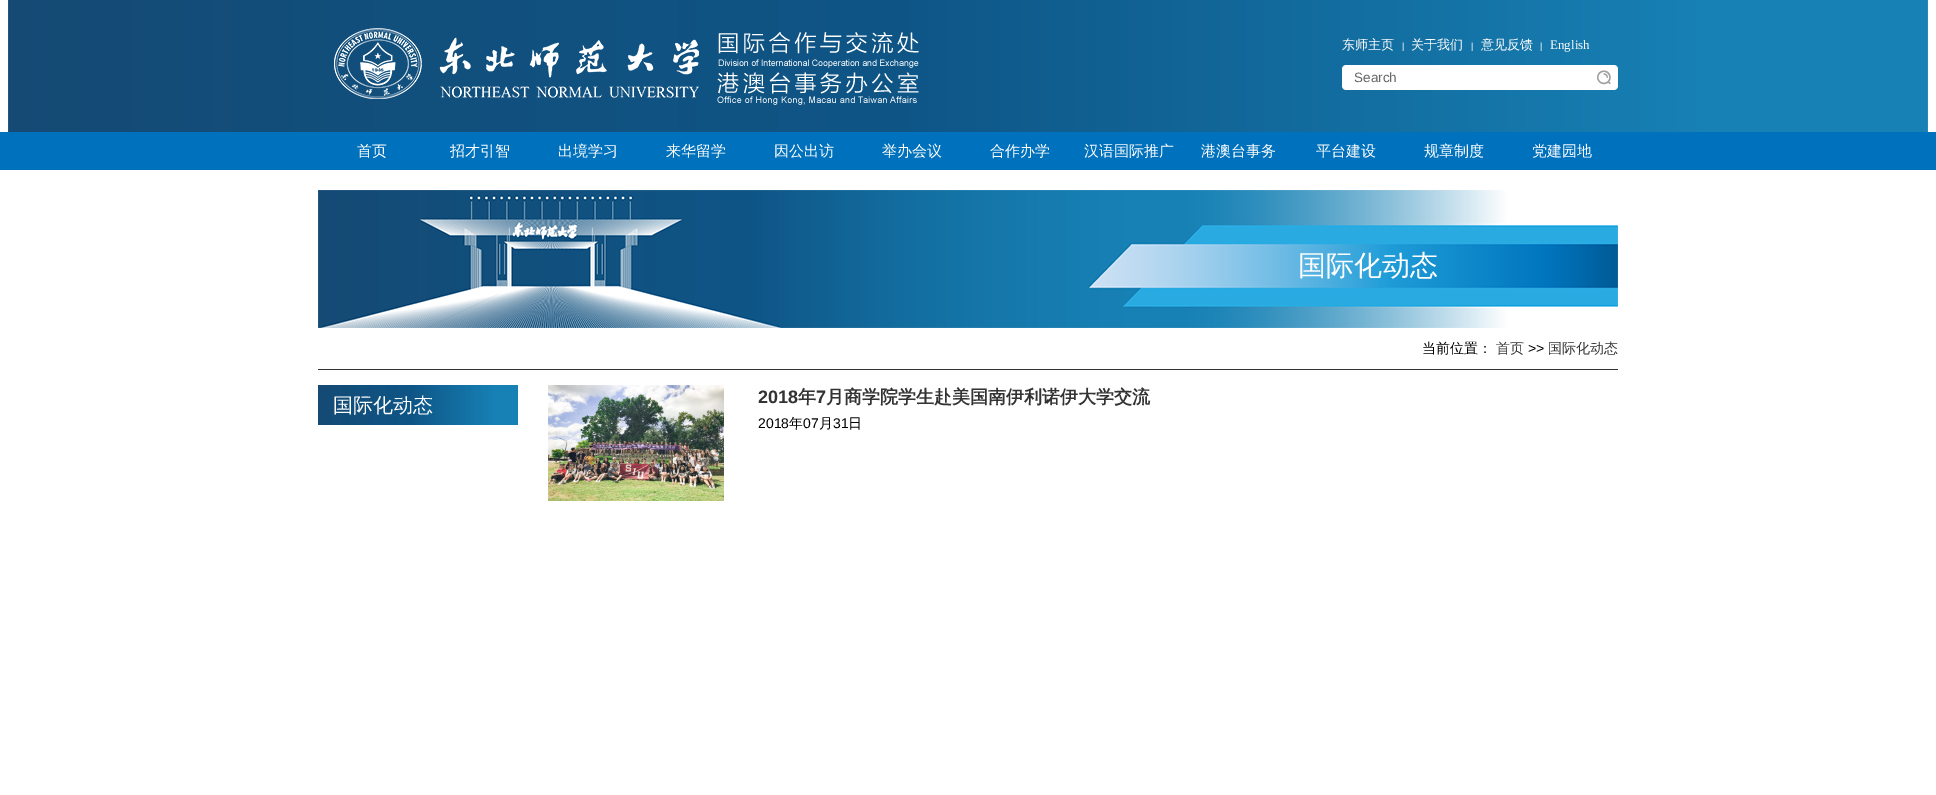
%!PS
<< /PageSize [1936 795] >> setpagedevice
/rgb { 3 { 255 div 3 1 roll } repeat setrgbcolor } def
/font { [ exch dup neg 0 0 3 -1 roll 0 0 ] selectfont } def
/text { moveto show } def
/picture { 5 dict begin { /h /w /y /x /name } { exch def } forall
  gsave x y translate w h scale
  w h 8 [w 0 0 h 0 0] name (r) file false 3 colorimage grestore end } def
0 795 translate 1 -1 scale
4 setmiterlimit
255 255 255 rgb
0 0 1936 795 rectfill
(img_01.rgb) 8 0 1920 132 picture
(img_02.rgb) 334 28 585 77 picture
1346 65 moveto 244 0 rlineto 0 25 rlineto -244 0 rlineto -2 0 -4 -2 -4 -4 rcurveto 0 -17 rlineto 0 -2 2 -4 4 -4 rcurveto closepath fill
1590 65 moveto 24 0 rlineto 2 0 4 2 4 4 rcurveto 0 17 rlineto 0 2 -2 4 -4 4 rcurveto -24 0 rlineto closepath fill
(img_03.rgb) 1597 70 14 15 picture
0 113 188 rgb
0 132 1936 38 rectfill
(img_04.rgb) 318 190 1300 138 picture
51 51 51 rgb
318 369 1300 1 rectfill
(img_05.rgb) 318 385 200 40 picture
(img_06.rgb) 548 385 176 116 picture
/WenQuanYiZenHei-Medium 13 font
255 255 255 rgb
(东师主页) 1342 49 text
/LiberationSans-Regular 9 font
(|) 1402 49 text
/WenQuanYiZenHei-Medium 13 font
(关于我们) 1411 49 text
/LiberationSans-Regular 9 font
(|) 1471 49 text
/WenQuanYiZenHei-Medium 13 font
(意见反馈) 1481 49 text
/LiberationSans-Regular 9 font
(|) 1540 49 text
/LiberationSerif-Regular 13 font
(English) 1550 49 text
/LiberationSans-Regular 13.5 font
102 102 102 rgb
(Search) 1354 82 text
/WenQuanYiZenHei-Medium 15 font
255 255 255 rgb
(首页) 357 156 text
(招才引智) 450 156 text
(出境学习) 558 156 text
(来华留学) 666 156 text
(因公出访) 774 156 text
(举办会议) 882 156 text
(合作办学) 990 156 text
(汉语国际推广) 1084 156 text
(港澳台事务) 1201 156 text
(平台建设) 1316 156 text
(规章制度) 1424 156 text
(党建园地) 1532 156 text
/WenQuanYiZenHei-Medium 28 font
(国际化动态) 1298 275 text
/WenQuanYiZenHei-Medium 14 font
0 0 0 rgb
(当前位置：) 1422 353 text
51 51 51 rgb
(首页) 1496 353 text
/LiberationSans-Regular 14 font
0 0 0 rgb
(>>) 1528 353 text
/WenQuanYiZenHei-Medium 14 font
51 51 51 rgb
(国际化动态) 1548 353 text
/WenQuanYiZenHei-Medium 20 font
255 255 255 rgb
(国际化动态) 333 412 text
/LiberationSans-Bold 18 font
51 51 51 rgb
(2018) 758 403 text
/WenQuanYiZenHei-Bold 18 font
(年) 798 403 text
/LiberationSans-Bold 18 font
(7) 816 403 text
/WenQuanYiZenHei-Bold 18 font
(月商学院学生赴美国南伊利诺伊大学交流) 826 403 text
/LiberationSans-Regular 14 font
0 0 0 rgb
(2018) 758 428 text
/WenQuanYiZenHei-Medium 14 font
(年) 789 428 text
/LiberationSans-Regular 14 font
(07) 803 428 text
/WenQuanYiZenHei-Medium 14 font
(月) 819 428 text
/LiberationSans-Regular 14 font
(31) 833 428 text
/WenQuanYiZenHei-Medium 14 font
(日) 848 428 text
showpage
